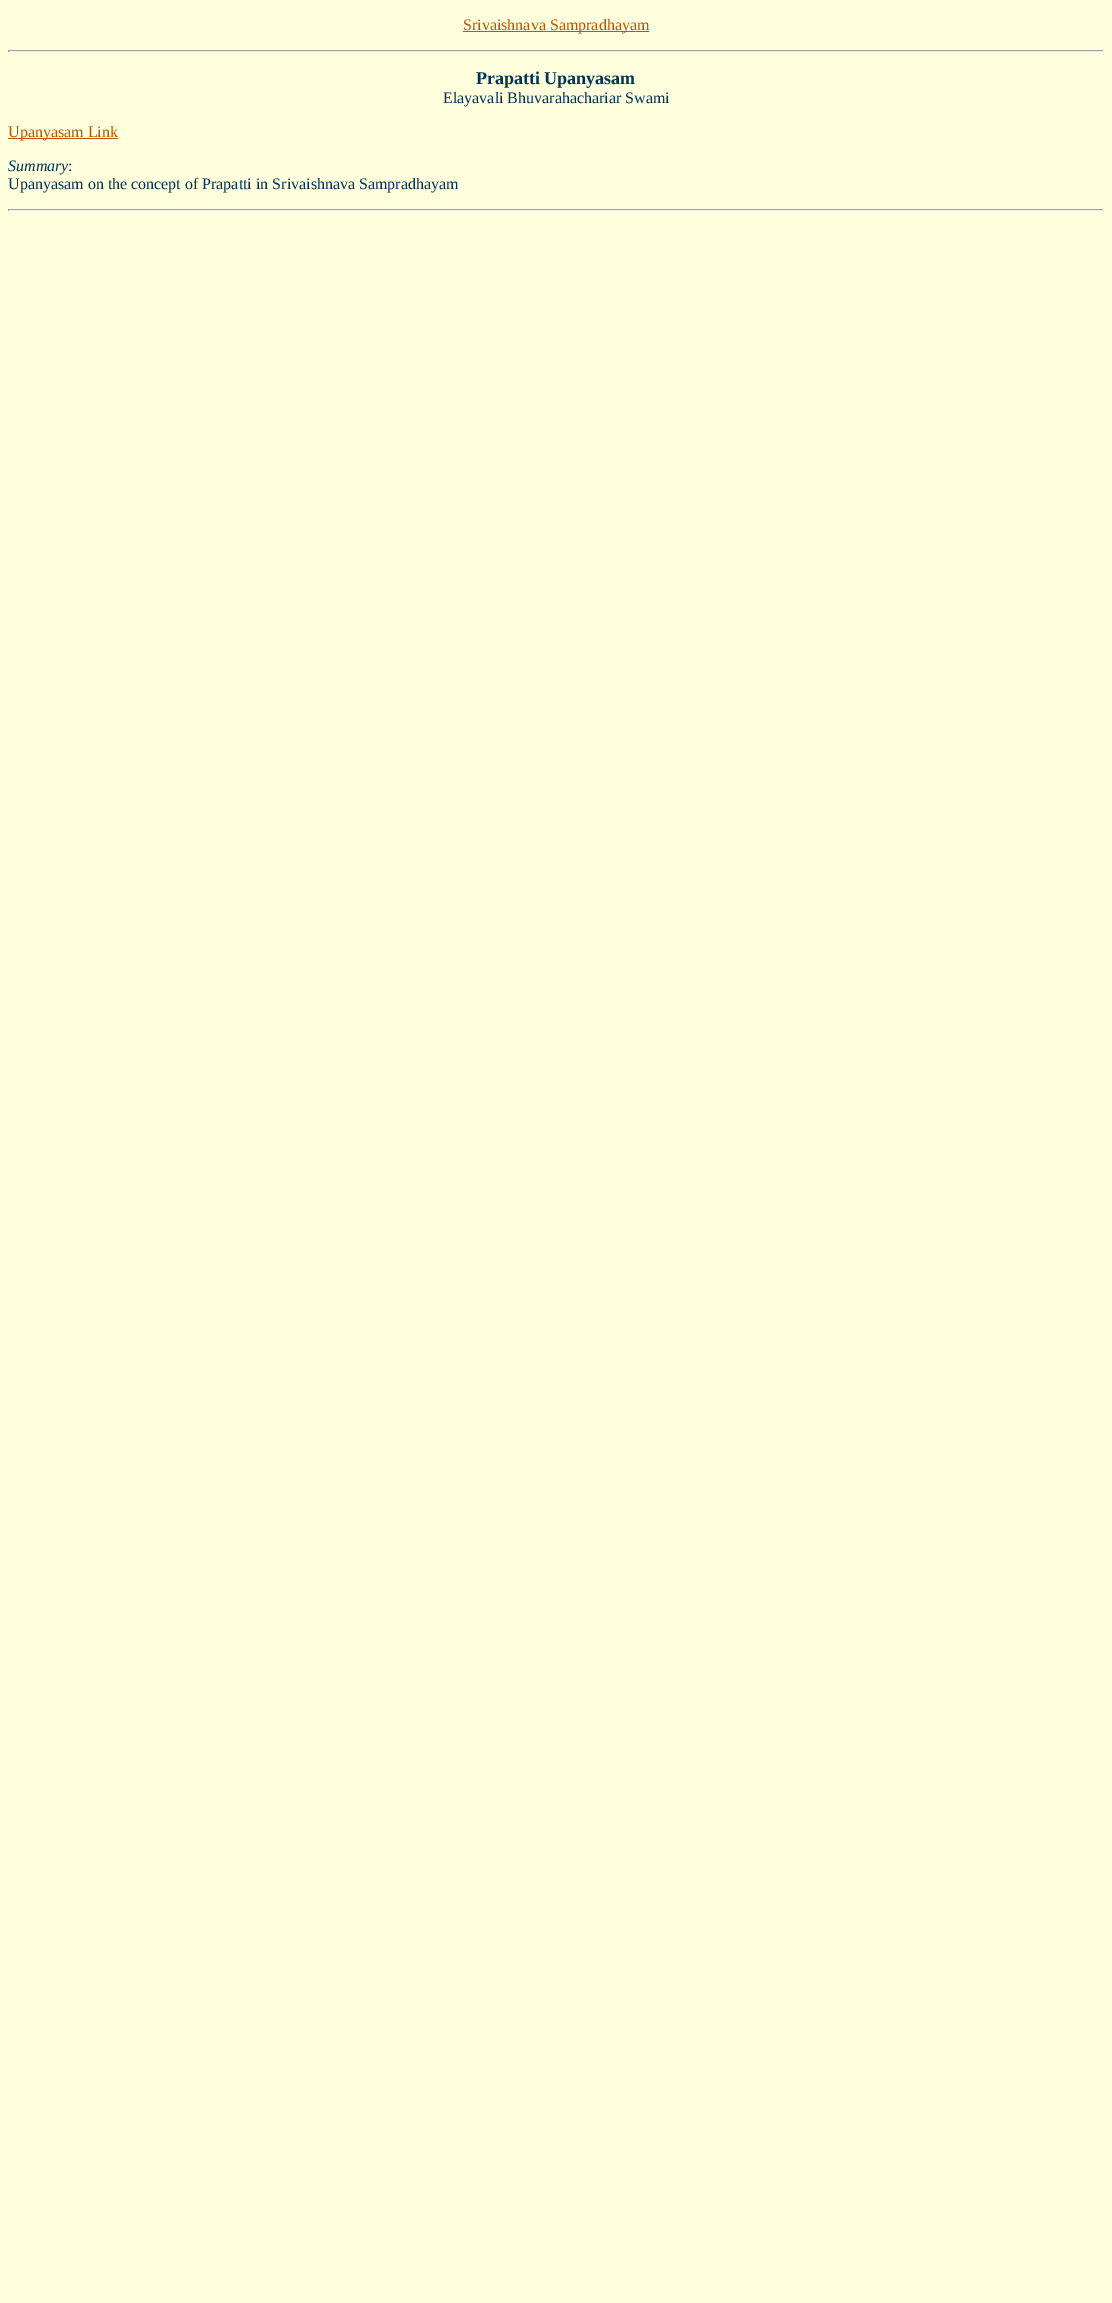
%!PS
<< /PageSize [1112 2303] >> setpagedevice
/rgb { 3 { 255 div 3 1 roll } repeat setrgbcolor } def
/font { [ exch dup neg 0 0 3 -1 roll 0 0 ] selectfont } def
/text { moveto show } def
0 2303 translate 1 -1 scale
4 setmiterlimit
255 255 221 rgb
0 0 1112 2303 rectfill
187 85 0 rgb
463 31 186 1 rectfill
159 159 159 rgb
8 50 1096 1 rectfill
238 238 238 rgb
1103 50 1 2 rectfill
8 51 1096 1 rectfill
159 159 159 rgb
8 50 1 2 rectfill
187 85 0 rgb
8 138 110 1 rectfill
159 159 159 rgb
8 209 1096 1 rectfill
238 238 238 rgb
1103 209 1 2 rectfill
8 210 1096 1 rectfill
159 159 159 rgb
8 209 1 2 rectfill
/LiberationSerif-Regular 16 font
187 85 0 rgb
(Srivaishnava Sampradhayam) 463 30 text
/LiberationSerif-Bold 18 font
0 51 85 rgb
(Prapatti Upanyasam) 476 84 text
/LiberationSerif-Regular 16 font
(Elayavali Bhuvarahachariar Swami) 443 103 text
187 85 0 rgb
(Upanyasam Link) 8 137 text
/LiberationSerif-Italic 16 font
0 51 85 rgb
(Summary) 8 171 text
/LiberationSerif-Regular 16 font
(:) 68 171 text
(Upanyasam on the concept of Prapatti in Srivaishnava Sampradhayam) 8 189 text
showpage
